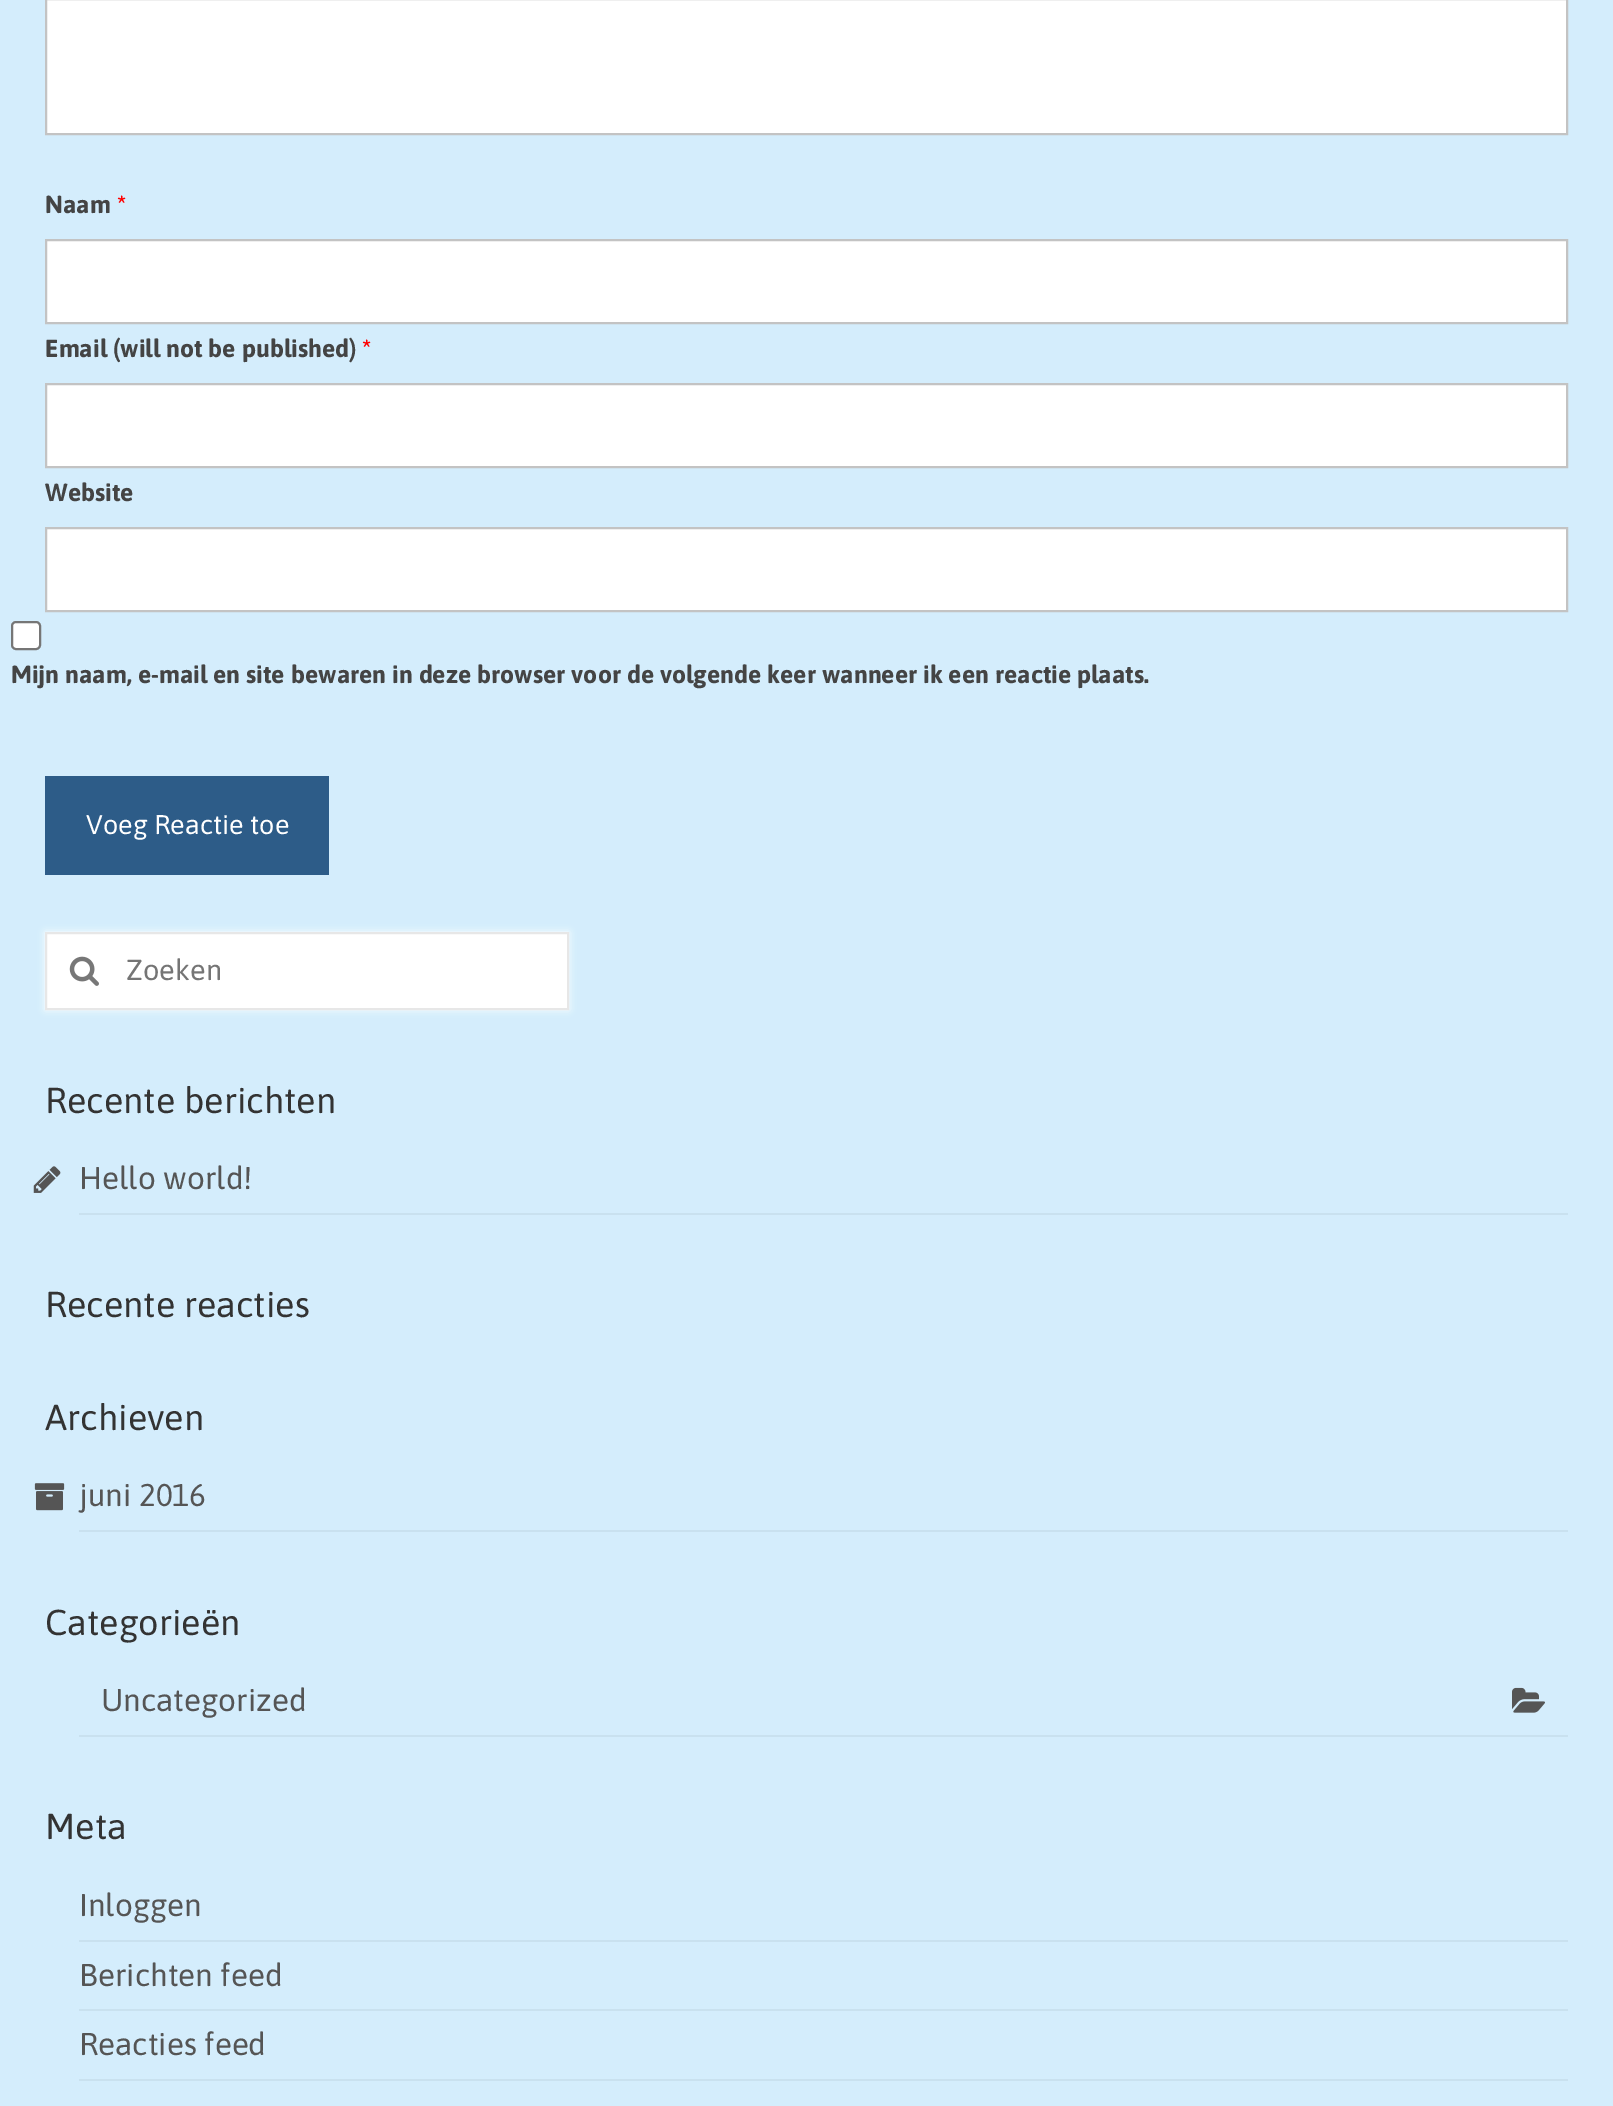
%!PS
<< /PageSize [1613 2106] /PageUsesTransparency true >> setpagedevice
/rgb { 3 { 255 div 3 1 roll } repeat setrgbcolor } def
/font { [ exch dup neg 0 0 3 -1 roll 0 0 ] selectfont } def
/text { moveto show } def
/alpha { dup .setfillconstantalpha .setstrokeconstantalpha } def
/roundrect { 5 dict begin { /r /h /w /y /x } { exch def } forall
  x r add y moveto x w add y 2 copy h add r arct x w add y h add x 1 index r arct
  x y h add x y r arct x y 2 copy exch w add exch r arct closepath end } def
/shadow { 12 dict begin { /a /b /q /h /w /y /x } { exch def } forall gsave /was 0 def
  9 -2 -9 { dup b mul 4 div /e exch def 1 sub .425 mul 2.718 exch exp 1 add a .99 .min exch div /now exch def
    1 1 now sub 1 was sub div sub alpha /was now def
    w h .min e 2 mul add 0 gt { x e sub y e sub w e 2 mul add h e 2 mul add
      q e add b .6 mul add w h .min 2 div e add .min 0 .max roundrect fill } if } for grestore end } def
/picture { 5 dict begin { /h /w /y /x /name } { exch def } forall
  gsave x y translate w h scale
  w h 8 [w 0 0 h 0 0] name (r) file false 3 colorimage grestore end } def
0 .pushpdf14devicefilter
0 2106 translate 1 -1 scale
4 setmiterlimit
212 237 252 rgb
0 0 1613 2106 rectfill
255 255 255 rgb
46 -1 moveto 1521 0 rlineto 0 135 rlineto -1521 0 rlineto closepath gsave fill grestore
195 195 195 rgb
2 setlinewidth
stroke
255 255 255 rgb
46 240 moveto 1521 0 rlineto 0 83 rlineto -1521 0 rlineto closepath gsave fill grestore
195 195 195 rgb
stroke
255 255 255 rgb
46 384 moveto 1521 0 rlineto 0 83 rlineto -1521 0 rlineto closepath gsave fill grestore
195 195 195 rgb
stroke
255 255 255 rgb
46 528 moveto 1521 0 rlineto 0 83 rlineto -1521 0 rlineto closepath gsave fill grestore
195 195 195 rgb
stroke
255 255 255 rgb
12 622 28 27 4 roundrect gsave fill grestore
118 118 118 rgb
stroke
45 92 136 rgb
45 776 284 99 rectfill
255 255 255 rgb
45 932 524 78 0 3.5 1 shadow
46 933 moveto 522 0 rlineto 0 76 rlineto -522 0 rlineto closepath gsave fill grestore
231 231 231 rgb
stroke
(img_01.rgb) 69 956 30 30 picture
201 225 239 rgb
79 1213 1489 2 rectfill
(img_02.rgb) 33 1166 28 27 picture
79 1530 1489 2 rectfill
(img_03.rgb) 34 1483 31 28 picture
79 1735 1489 2 rectfill
(img_04.rgb) 1512 1687 33 26 picture
79 1940 1489 2 rectfill
79 2009 1489 2 rectfill
79 2079 1489 2 rectfill
/Asap-Bold 24.75 font
68 68 68 rgb
(Naam) 45 213 text
255 0 0 rgb
(*) 117 213 text
68 68 68 rgb
(Email \(will not be published\)) 45 357 text
255 0 0 rgb
(*) 362 357 text
68 68 68 rgb
(Website) 45 501 text
(Mijn naam, e-mail en site bewaren in deze browser voor de volgende keer wanneer ik een reactie plaats.) 11 683 text
/Asap-Regular 27 font
255 255 255 rgb
(Voeg Reactie toe) 86 834 text
/Asap-Regular 29 font
117 117 117 rgb
(Zoeken) 126 980 text
/Asap-Regular 36 font
51 51 51 rgb
(Recente berichten) 45 1113 text
/Asap-Regular 31.5 font
85 85 85 rgb
(Hello world!) 79 1189 text
/Asap-Regular 36 font
51 51 51 rgb
(Recente reacties) 45 1317 text
(Archieven) 45 1430 text
/Asap-Regular 31.5 font
85 85 85 rgb
(juni 2016) 79 1506 text
/Asap-Regular 36 font
51 51 51 rgb
(Categorieën) 45 1635 text
/Asap-Regular 31.5 font
85 85 85 rgb
(Uncategorized) 101 1711 text
/Asap-Regular 36 font
51 51 51 rgb
(Meta) 45 1839 text
/Asap-Regular 31.5 font
85 85 85 rgb
(Inloggen) 79 1916 text
(Berichten feed) 79 1986 text
(Reacties feed) 79 2055 text
.poppdf14devicefilter showpage
